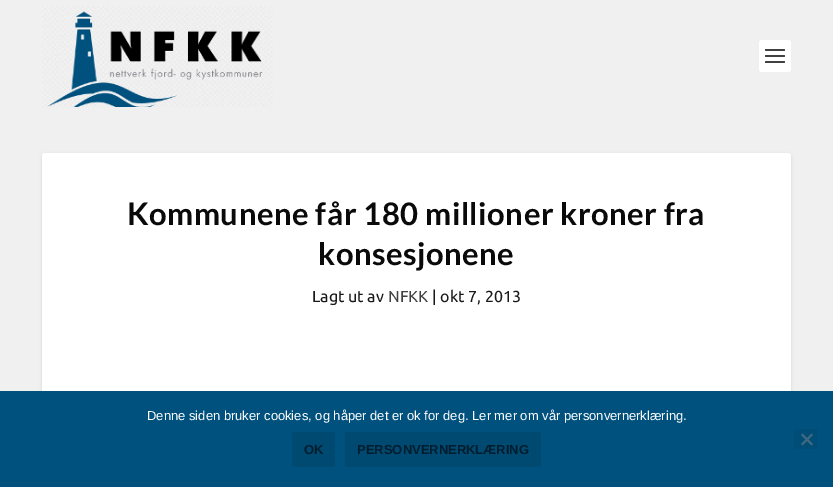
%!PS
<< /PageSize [833 487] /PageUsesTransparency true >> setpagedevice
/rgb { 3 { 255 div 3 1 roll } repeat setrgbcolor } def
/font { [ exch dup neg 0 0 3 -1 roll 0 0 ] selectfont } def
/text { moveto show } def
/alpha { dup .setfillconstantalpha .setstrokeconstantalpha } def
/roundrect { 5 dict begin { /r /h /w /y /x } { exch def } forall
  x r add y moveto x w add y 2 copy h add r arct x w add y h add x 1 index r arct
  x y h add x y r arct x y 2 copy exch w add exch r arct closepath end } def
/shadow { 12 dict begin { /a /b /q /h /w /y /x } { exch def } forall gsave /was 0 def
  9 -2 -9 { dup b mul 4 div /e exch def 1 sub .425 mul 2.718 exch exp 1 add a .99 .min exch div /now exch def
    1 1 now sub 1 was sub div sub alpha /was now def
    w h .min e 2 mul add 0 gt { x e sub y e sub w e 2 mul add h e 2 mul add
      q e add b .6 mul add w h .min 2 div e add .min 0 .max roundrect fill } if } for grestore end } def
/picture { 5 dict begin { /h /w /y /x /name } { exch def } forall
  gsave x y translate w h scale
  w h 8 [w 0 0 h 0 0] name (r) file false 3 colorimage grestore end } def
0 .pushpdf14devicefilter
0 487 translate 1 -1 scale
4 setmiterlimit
240 240 240 rgb
0 0 833 487 rectfill
(img_01.rgb) 42 6 231 101 picture
255 255 255 rgb
759 40 32 32 3 roundrect fill
64 64 64 rgb
765 49 20 2 1 roundrect fill
765 55 20 2 1 roundrect fill
765 61 20 2 1 roundrect fill
0 0 0 rgb
42 154 749 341 3 1.5 0.1 shadow
255 255 255 rgb
42 153 749 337 3 roundrect fill
0 81 126 rgb
0 391 833 96 rectfill
0 73 113 rgb
292 432 43 35 3 roundrect fill
345 432 196 35 3 roundrect fill
0 77 120 rgb
794 429 24 20 3 roundrect fill
64 105 127 rgb
811.5 433.5 moveto 1.5 1.5 rlineto -10.5 10.5 rlineto -1.5 -1.5 rlineto closepath fill
801 435 moveto 1.5 -1.5 rlineto 10.5 10.5 rlineto -1.5 1.5 rlineto closepath fill
/Lato-Bold 31 font
10 10 10 rgb
127 225 moveto 0.5 0 (Kommunene får 180 millioner kroner fra) ashow
318 265 moveto 0.5 0 (konsesjonene) ashow
/Ubuntu-Regular 16 font
25 25 25 rgb
(Lagt ut av) 312 302 text
64 64 64 rgb
(NFKK) 388 302 text
25 25 25 rgb
(| okt 7, 2013) 432 302 text
/LiberationSans-Regular 13 font
255 255 255 rgb
(Denne siden bruker cookies, og håper det er ok for deg. Ler mer om vår personvernerklæring.) 147 420 text
/LiberationSans-Bold 13 font
0 29 45 rgb
(OK) 304 454 text
(PERSONVERNERKLÆRING) 357 454 text
.poppdf14devicefilter showpage
